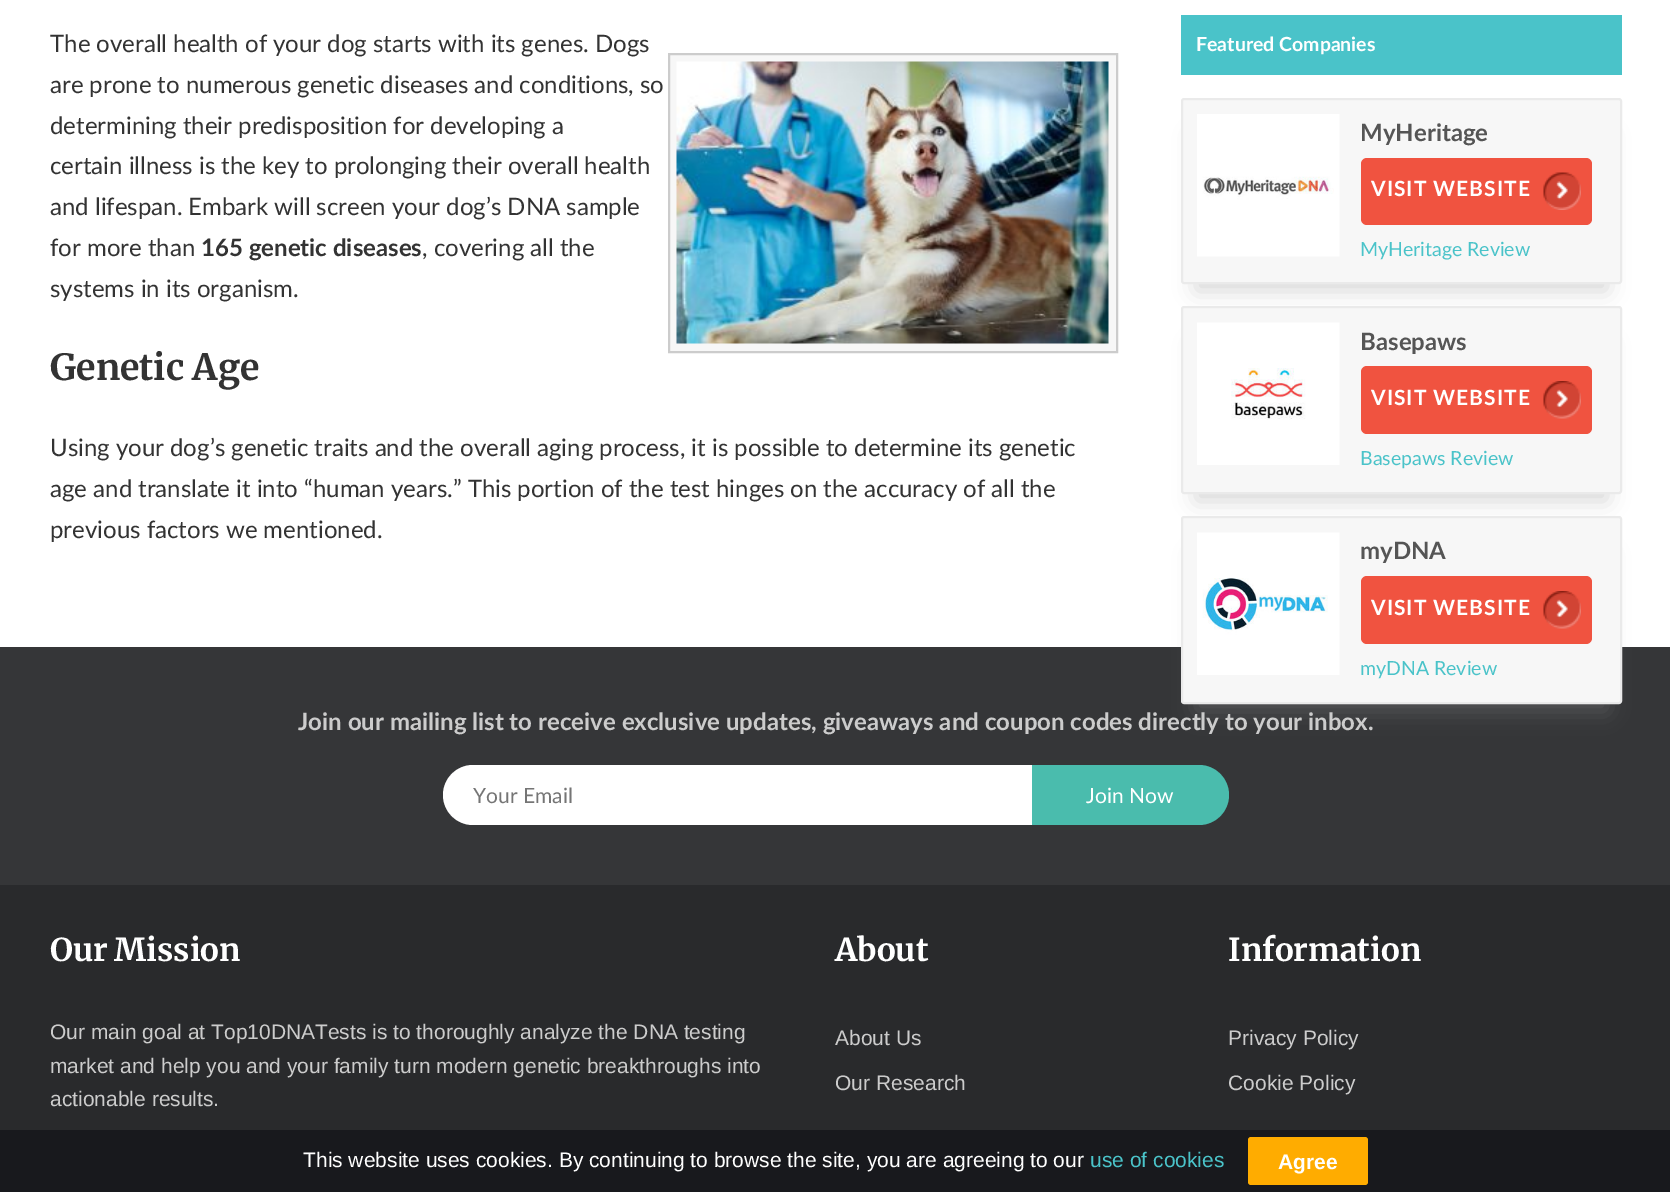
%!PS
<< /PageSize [1670 1192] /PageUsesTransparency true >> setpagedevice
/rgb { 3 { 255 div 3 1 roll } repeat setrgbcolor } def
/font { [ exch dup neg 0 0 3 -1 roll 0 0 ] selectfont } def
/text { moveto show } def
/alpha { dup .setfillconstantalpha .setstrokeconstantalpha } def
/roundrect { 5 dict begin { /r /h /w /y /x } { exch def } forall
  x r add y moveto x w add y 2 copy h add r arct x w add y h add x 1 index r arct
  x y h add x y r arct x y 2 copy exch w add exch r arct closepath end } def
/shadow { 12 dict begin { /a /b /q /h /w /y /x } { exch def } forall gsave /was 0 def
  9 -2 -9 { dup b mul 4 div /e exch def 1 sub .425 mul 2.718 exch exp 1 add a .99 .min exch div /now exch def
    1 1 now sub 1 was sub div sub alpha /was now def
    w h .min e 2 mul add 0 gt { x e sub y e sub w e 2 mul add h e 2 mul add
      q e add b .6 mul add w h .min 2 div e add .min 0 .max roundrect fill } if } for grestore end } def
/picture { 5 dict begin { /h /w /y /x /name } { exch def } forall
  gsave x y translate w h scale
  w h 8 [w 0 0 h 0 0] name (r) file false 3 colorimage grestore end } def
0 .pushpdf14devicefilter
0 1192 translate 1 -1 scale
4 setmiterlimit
255 255 255 rgb
0 0 1670 1192 rectfill
247 247 247 rgb
669 54 moveto 448 0 rlineto 0 298 rlineto -448 0 rlineto closepath gsave fill grestore
204 204 204 rgb
2 setlinewidth
stroke
(img_01.rgb) 676 61 433 283 picture
74 195 201 rgb
1181 15 441 60 rectfill
145 145 145 rgb
1196 135 411 156 0 11 0.35 shadow
247 247 247 rgb
1182 99 439 184 2 roundrect gsave fill grestore
234 234 234 rgb
stroke
(img_02.rgb) 1197 114 143 143 picture
240 83 64 rgb
1361 158 231 67 6 roundrect fill
(img_03.rgb) 1543 172 38 38 picture
145 145 145 rgb
1196 344 411 157 0 11 0.35 shadow
247 247 247 rgb
1182 307 439 186 2 roundrect gsave fill grestore
234 234 234 rgb
stroke
(img_04.rgb) 1197 322 143 143 picture
240 83 64 rgb
1361 366 231 68 6 roundrect fill
(img_05.rgb) 1543 381 38 38 picture
53 54 56 rgb
0 647 1670 238 rectfill
145 145 145 rgb
1196 554 411 157 0 11 0.35 shadow
247 247 247 rgb
1182 517 439 186 2 roundrect gsave fill grestore
234 234 234 rgb
stroke
(img_06.rgb) 1197 532 143 143 picture
240 83 64 rgb
1361 576 231 68 6 roundrect fill
(img_05.rgb) 1543 591 38 38 picture
255 255 255 rgb
473 765 moveto 559 0 rlineto 0 60 rlineto -559 0 rlineto -16.5 0 -30 -13.5 -30 -30 rcurveto 0 -16.5 13.5 -30 30 -30 rcurveto closepath fill
74 188 173 rgb
1032 765 moveto 167 0 rlineto 16.5 0 30 13.5 30 30 rcurveto 0 16.5 -13.5 30 -30 30 rcurveto -167 0 rlineto closepath fill
41 42 44 rgb
0 885 1670 245 rectfill
24 25 29 rgb
0 1130 1670 62 rectfill
255 172 0 rgb
1248 1137 120 48 3 roundrect fill
/Lato-Regular 24 font
51 51 51 rgb
(The overall health of your dog starts with its genes. Dogs) 50 52 text
(are prone to numerous genetic diseases and conditions, so) 50 93 text
(determining their predisposition for developing a) 50 134 text
(certain illness is the key to prolonging their overall health) 50 174 text
(and lifespan. Embark will screen your dog’s DNA sample) 50 215 text
(for more than) 50 256 text
/Lato-Bold 24 font
(165 genetic diseases) 201 256 text
/Lato-Regular 24 font
(, covering all the) 422 256 text
(systems in its organism.) 50 297 text
/Merriweather-Bold 36 font
(Genetic Age) 50 380 text
/Lato-Regular 24 font
(Using your dog’s genetic traits and the overall aging process, it is possible to determine its genetic) 50 456 text
(age and translate it into “human years.” This portion of the test hinges on the accuracy of all the) 50 497 text
(previous factors we mentioned.) 50 538 text
/Lato-Bold 19.5 font
255 255 255 rgb
(Featured Companies) 1196 51 text
/Lato-Bold 24 font
85 85 85 rgb
(MyHeritage) 1360 141 text
/Lato-Bold 21 font
255 255 255 rgb
1371 196 moveto 1 0 (VISIT WEBSITE) ashow
/Lato-Regular 19.5 font
74 195 201 rgb
(MyHeritage Review) 1360 256 text
/Lato-Bold 24 font
85 85 85 rgb
(Basepaws) 1360 350 text
/Lato-Bold 21 font
255 255 255 rgb
1371 405 moveto 1 0 (VISIT WEBSITE) ashow
/Lato-Regular 19.5 font
74 195 201 rgb
(Basepaws Review) 1360 465 text
/Lato-Bold 24 font
85 85 85 rgb
(myDNA) 1360 559 text
/Lato-Bold 21 font
255 255 255 rgb
1371 615 moveto 1 0 (VISIT WEBSITE) ashow
/Lato-Regular 19.5 font
74 195 201 rgb
(myDNA Review) 1360 675 text
/Lato-Bold 24 font
204 204 204 rgb
(Join our mailing list to receive exclusive updates, giveaways and coupon codes directly to your inbox.) 298 730 text
/Lato-Regular 21 font
117 117 117 rgb
(Your Email) 473 803 text
255 255 255 rgb
(Join Now) 1086 803 text
/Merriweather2-Bold 31.5 font
50 961 moveto -1 0 32 (Our Mission) widthshow
/LiberationSans-Regular 21 font
204 204 204 rgb
(Our main goal at Top10DNATests is to thoroughly analyze the DNA testing) 50 1039 text
(market and help you and your family turn modern genetic breakthroughs into) 50 1073 text
(actionable results.) 50 1106 text
/Merriweather2-Bold 31.5 font
255 255 255 rgb
(About) 835 961 text
/LiberationSans-Regular 21 font
204 204 204 rgb
(About Us) 835 1045 text
(Our Research) 835 1090 text
/Merriweather2-Bold 31.5 font
255 255 255 rgb
(Information) 1228 961 text
/LiberationSans-Regular 21 font
204 204 204 rgb
(Privacy Policy) 1228 1045 text
(Cookie Policy) 1228 1090 text
255 255 255 rgb
(This website uses cookies. By continuing to browse the site, you are agreeing to our) 303 1167 text
74 195 201 rgb
(use of cookies) 1090 1167 text
/LiberationSans-Bold 21 font
255 255 255 rgb
(Agree) 1278 1169 text
.poppdf14devicefilter showpage
